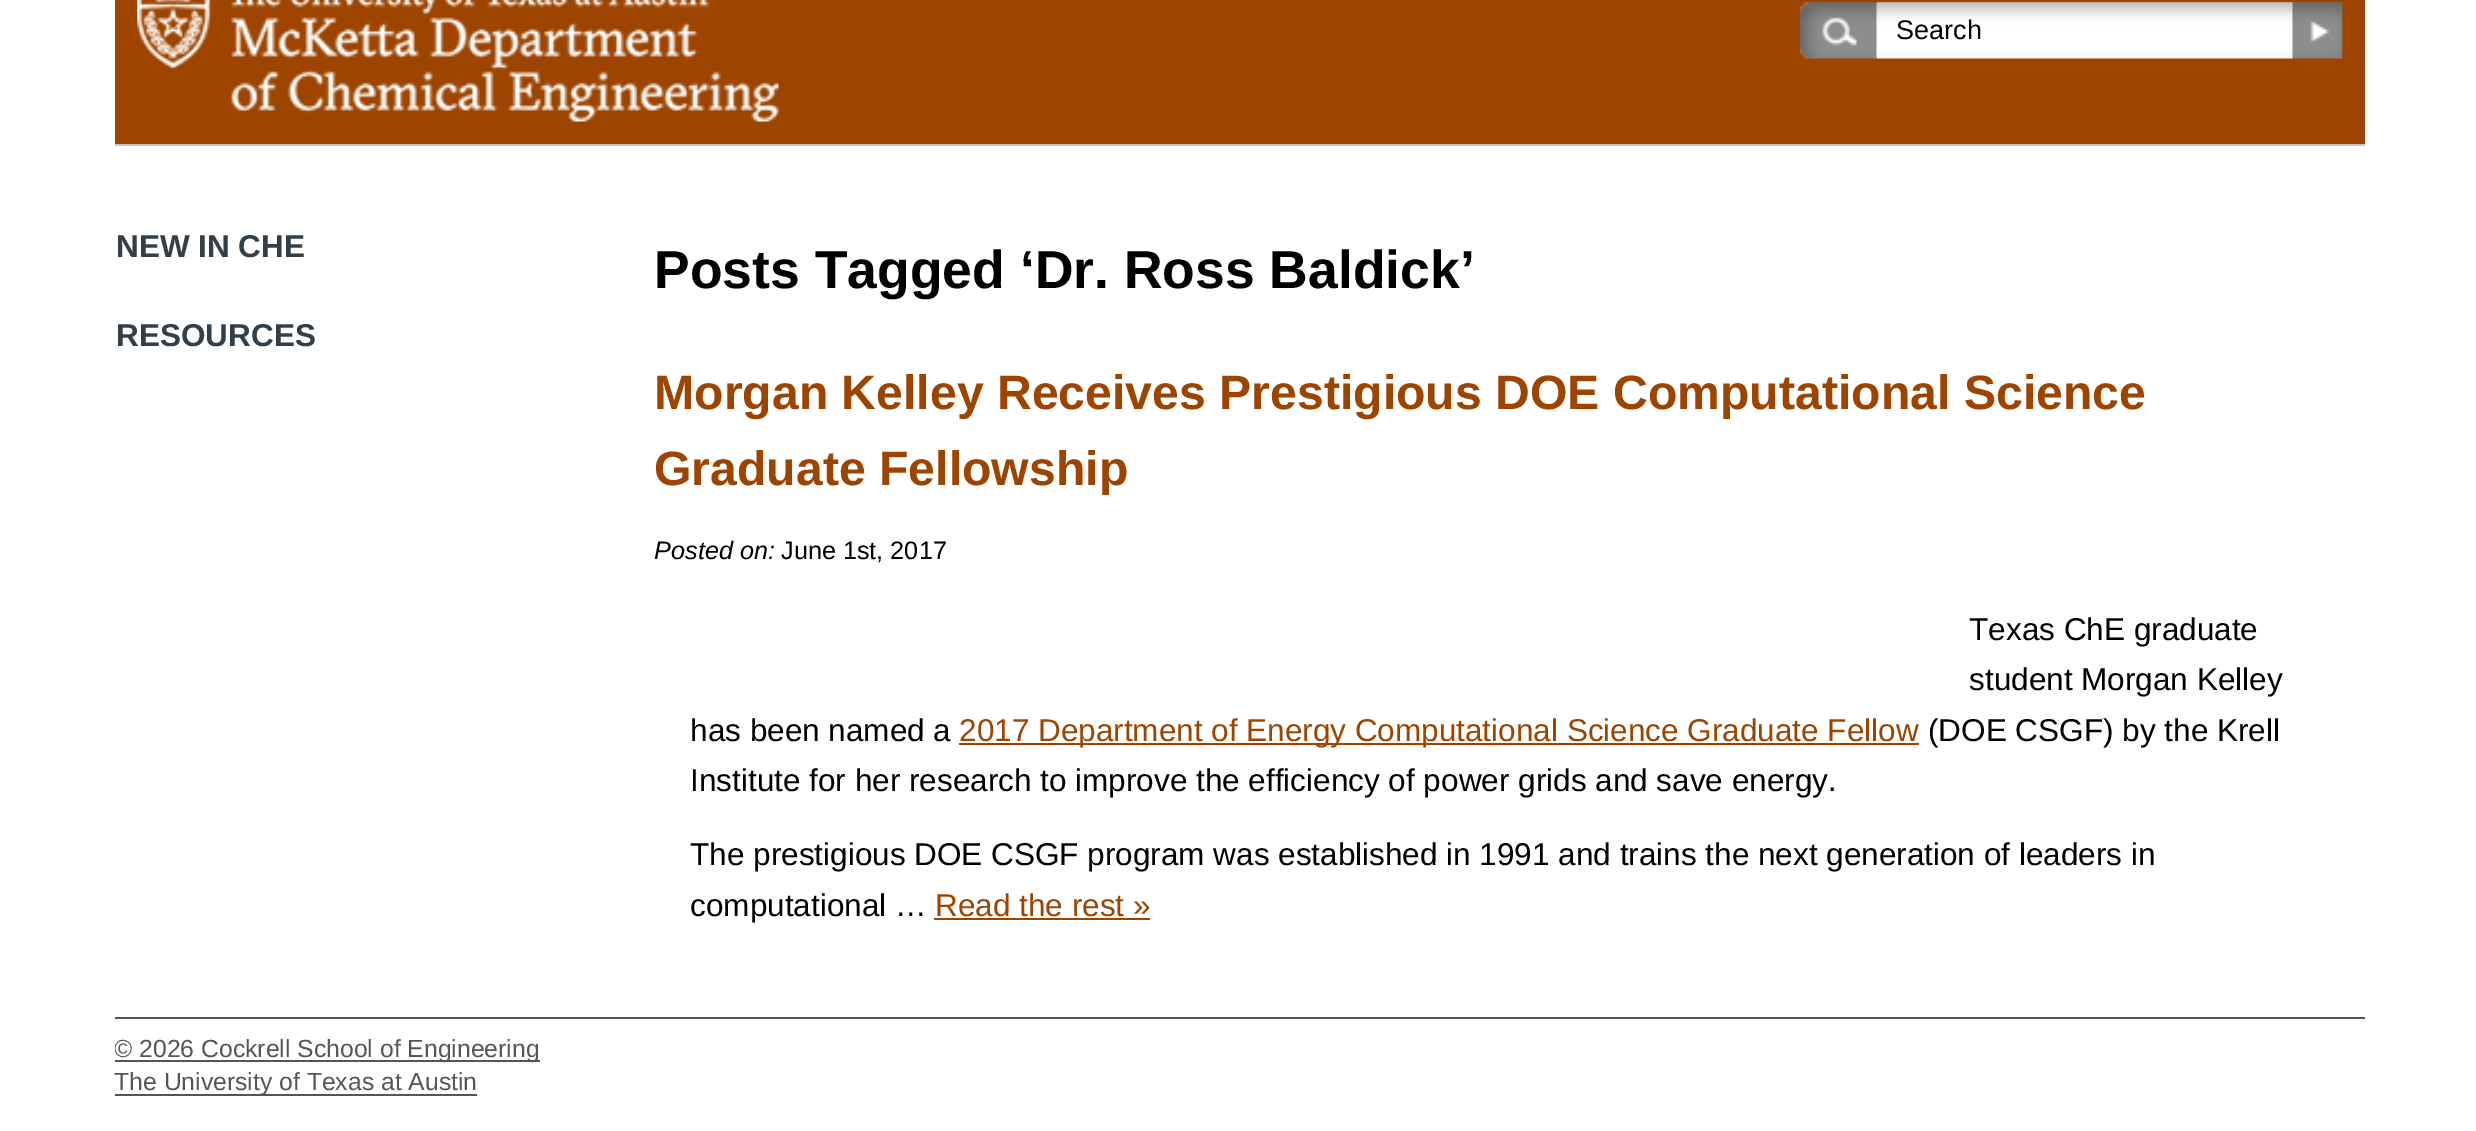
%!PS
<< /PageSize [2476 1131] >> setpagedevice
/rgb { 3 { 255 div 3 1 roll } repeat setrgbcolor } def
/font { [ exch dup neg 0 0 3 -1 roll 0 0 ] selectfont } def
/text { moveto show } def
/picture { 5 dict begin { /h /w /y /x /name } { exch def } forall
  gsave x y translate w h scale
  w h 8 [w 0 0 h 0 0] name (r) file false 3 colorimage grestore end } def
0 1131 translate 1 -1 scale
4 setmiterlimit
255 255 255 rgb
0 0 2476 1131 rectfill
157 69 0 rgb
115 0 2250 144 rectfill
(img_01.rgb) 137 0 642 122 picture
(img_02.rgb) 1800 2 493 57 picture
(img_03.rgb) 2292 2 51 57 picture
196 196 196 rgb
115 144 2250 2 rectfill
157 69 0 rgb
959 743 960 2 rectfill
934 918 216 2 rectfill
85 85 85 rgb
115 1017 2250 2 rectfill
115 1060 425 2 rectfill
115 1094 362 2 rectfill
/LiberationSans-Regular 27 font
0 0 0 rgb
(Search) 1896 39 text
/LiberationSans-Bold 31.5 font
51 63 72 rgb
(NEW IN CHE) 116 257 text
(RESOURCES) 116 346 text
/LiberationSans-Bold 53.5 font
0 0 0 rgb
(Posts Tagged ‘Dr. Ross Baldick’) 654 288 text
/LiberationSans-Bold 48.2 font
157 69 0 rgb
(Morgan Kelley Receives Prestigious DOE Computational Science) 654 409 text
(Graduate Fellowship) 654 485 text
/LiberationSans-Italic 25.25 font
0 0 0 rgb
(Posted on:) 654 559 text
/LiberationSans-Regular 25.25 font
(June 1st, 2017) 781 559 text
/LiberationSans-Regular 31.5 font
(Texas ChE graduate) 1969 640 text
(student Morgan Kelley) 1969 690 text
(has been named a) 690 741 text
157 69 0 rgb
(2017 Department of Energy Computational Science Graduate Fellow) 959 741 text
0 0 0 rgb
(\(DOE CSGF\) by the Krell) 1928 741 text
(Institute for her research to improve the efficiency of power grids and save energy.) 690 791 text
(The prestigious DOE CSGF program was established in 1991 and trains the next generation of leaders in) 690 865 text
(computational …) 690 916 text
157 69 0 rgb
(Read the rest ») 935 916 text
gsave
115 1033 2250 67 rectclip
/LiberationSans-Regular 24.75 font
85 85 85 rgb
(© 2026) 114 1057 text
grestore
/LiberationSans-Regular 24.75 font
85 85 85 rgb
(Cockrell School of Engineering) 201 1057 text
(The University of Texas at Austin) 114 1090 text
showpage
